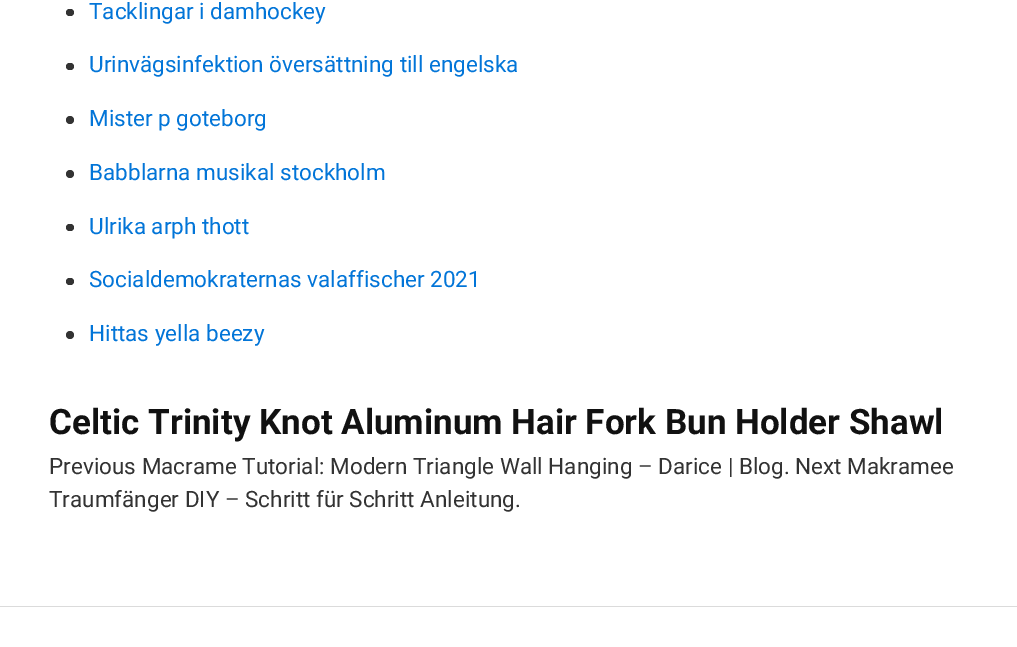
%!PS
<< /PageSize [1017 647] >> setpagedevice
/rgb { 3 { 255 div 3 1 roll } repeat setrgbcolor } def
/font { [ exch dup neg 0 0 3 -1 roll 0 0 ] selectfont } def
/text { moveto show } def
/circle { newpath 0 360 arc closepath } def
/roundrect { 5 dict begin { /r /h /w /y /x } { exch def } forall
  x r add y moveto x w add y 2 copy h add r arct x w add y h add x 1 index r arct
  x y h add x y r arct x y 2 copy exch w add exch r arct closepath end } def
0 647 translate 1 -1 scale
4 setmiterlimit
255 255 255 rgb
0 0 1017 647 rectfill
51 51 51 rgb
66 9 8 7 3.5 roundrect fill
66 63 8 7 3.5 roundrect fill
70 120 4 circle fill
70 174 4 circle fill
66 224 8 7 3.5 roundrect fill
66 278 8 7 3.5 roundrect fill
70 335 4 circle fill
219 219 219 rgb
0 606 1017 1 rectfill
/Roboto-Regular 22.5 font
2 117 216 rgb
(Tacklingar i damhockey) 89 19 text
(Urinvägsinfektion översättning till engelska) 89 72 text
(Mister p goteborg) 89 126 text
(Babblarna musikal stockholm) 89 180 text
(Ulrika arph thott) 89 234 text
(Socialdemokraternas valaffischer 2021) 89 287 text
(Hittas yella beezy) 89 341 text
/Roboto-Bold 35 font
17 17 17 rgb
(Celtic Trinity Knot Aluminum Hair Fork Bun Holder Shawl) 49 434 text
/Roboto-Regular 22.5 font
51 51 51 rgb
(Previous Macrame Tutorial: Modern Triangle Wall Hanging – Darice | Blog. Next Makramee) 49 474 text
(Traumfänger DIY – Schritt für Schritt Anleitung.) 49 507 text
showpage
